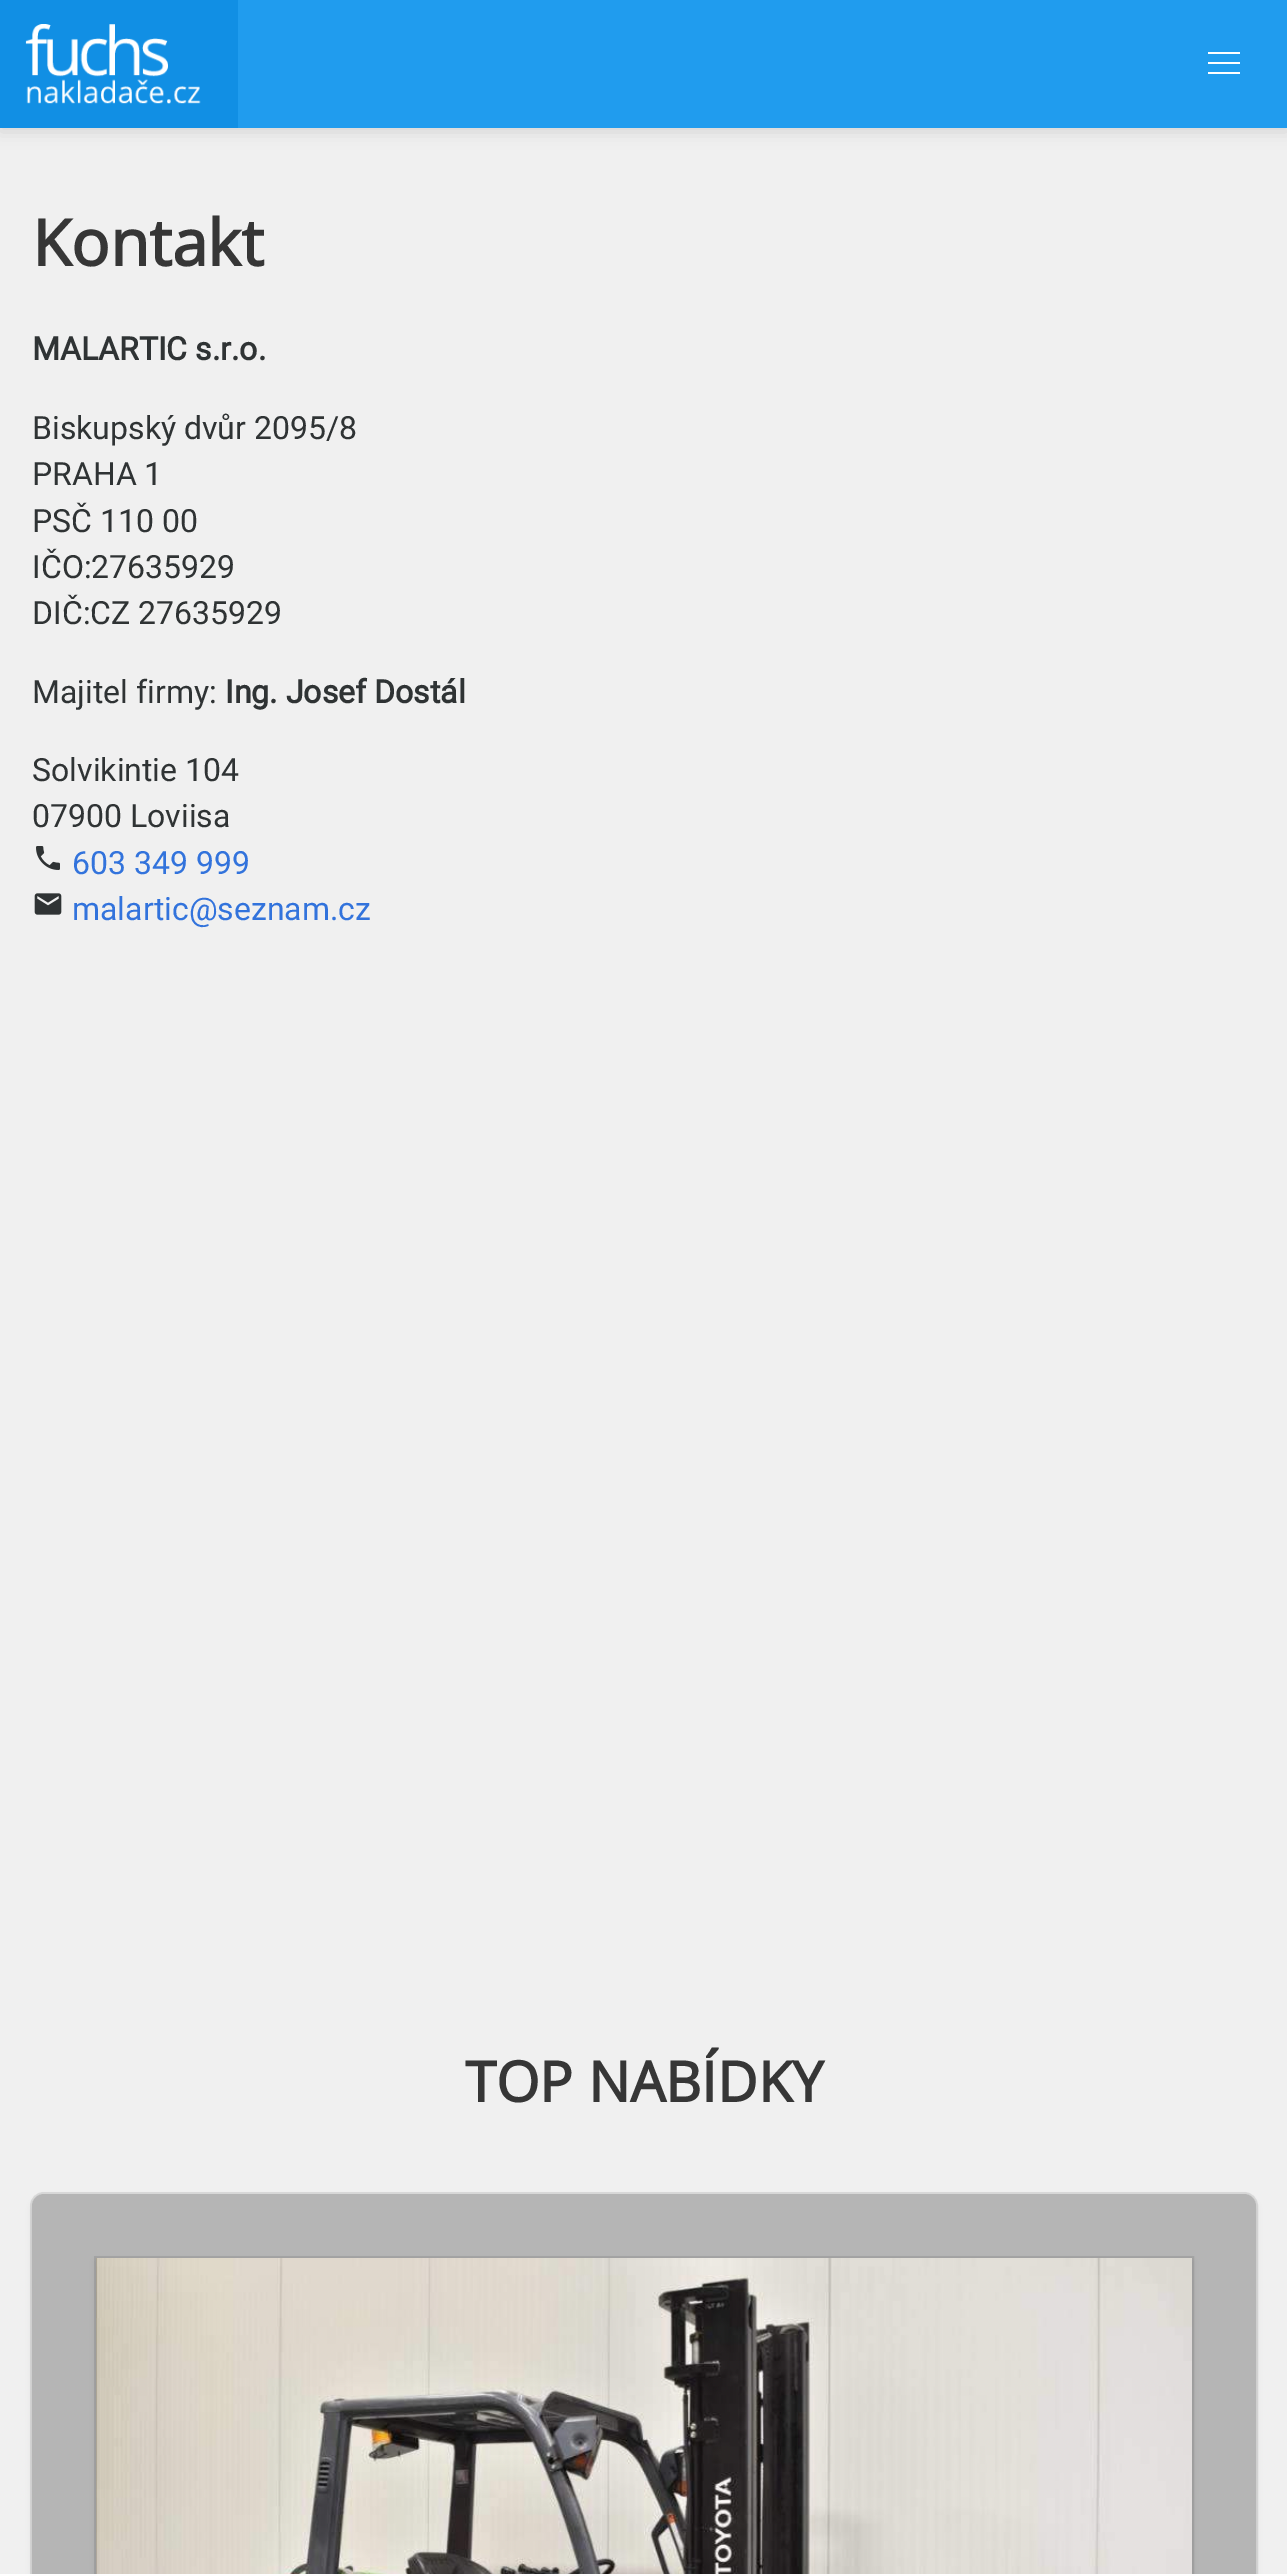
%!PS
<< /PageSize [1287 2574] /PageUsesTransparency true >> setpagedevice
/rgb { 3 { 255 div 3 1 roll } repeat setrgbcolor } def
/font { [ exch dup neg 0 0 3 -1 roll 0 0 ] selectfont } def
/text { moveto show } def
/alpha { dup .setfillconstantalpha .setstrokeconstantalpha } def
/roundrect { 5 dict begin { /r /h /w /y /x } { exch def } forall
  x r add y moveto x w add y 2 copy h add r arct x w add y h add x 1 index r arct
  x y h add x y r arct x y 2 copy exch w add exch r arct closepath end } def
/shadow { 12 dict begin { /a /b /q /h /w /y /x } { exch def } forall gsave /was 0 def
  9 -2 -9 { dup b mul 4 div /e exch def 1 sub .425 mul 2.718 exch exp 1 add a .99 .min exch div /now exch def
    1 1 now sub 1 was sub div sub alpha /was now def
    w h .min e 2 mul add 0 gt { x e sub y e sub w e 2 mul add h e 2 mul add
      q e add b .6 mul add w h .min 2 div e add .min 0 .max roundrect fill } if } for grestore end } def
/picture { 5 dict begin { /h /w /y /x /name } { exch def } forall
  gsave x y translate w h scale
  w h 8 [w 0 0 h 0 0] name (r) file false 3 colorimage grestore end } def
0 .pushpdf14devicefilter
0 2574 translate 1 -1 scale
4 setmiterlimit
240 240 240 rgb
0 0 1287 2574 rectfill
54 54 54 rgb
0 4 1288 128 0 8 0.15 shadow
32 156 238 rgb
238 0 1049 128 rectfill
17 143 228 rgb
0 0 238 128 rectfill
(img_01.rgb) 25 24 176 80 picture
255 255 255 rgb
1208 52 32 2 rectfill
1208 62 32 2 rectfill
1208 72 32 2 rectfill
(img_02.rgb) 36 846 24 24 picture
(img_03.rgb) 34 893 28 22 picture
217 217 217 rgb
2 setlinewidth
31 2193 1226 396 13 roundrect stroke
10 10 10 rgb
32 2198 1224 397 12 3 0.1 shadow
181 181 181 rgb
32 2194 1224 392 12 roundrect fill
164 164 164 rgb
95 2257 1098 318 rectstroke
10 10 10 rgb
96 2262 1096 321 0 3 0.1 shadow
(img_04.rgb) 96 2258 1096 316 picture
/OpenSans-Bold 64 font
54 54 54 rgb
(Kontakt) 32 266 text
/Roboto-Bold 32 font
47 51 52 rgb
(MALARTIC s.r.o.) 32 360 text
/Roboto-Regular 32 font
(Biskupský dvůr 2095/8) 32 439 text
(PRAHA 1) 32 485 text
(PSČ 110 00) 32 532 text
(IČO:27635929) 32 578 text
(DIČ:CZ 27635929) 32 624 text
(Majitel firmy:) 32 703 text
/Roboto-Bold 32 font
(Ing. Josef Dostál) 225 703 text
/Roboto-Regular 32 font
(Solvikintie 104) 32 781 text
(07900 Loviisa) 32 827 text
50 115 220 rgb
(603 349 999) 72 874 text
(malartic@seznam.cz) 72 920 text
/OpenSans-Bold 56 font
54 54 54 rgb
(TOP NABÍDKY) 465 2102 text
.poppdf14devicefilter showpage
